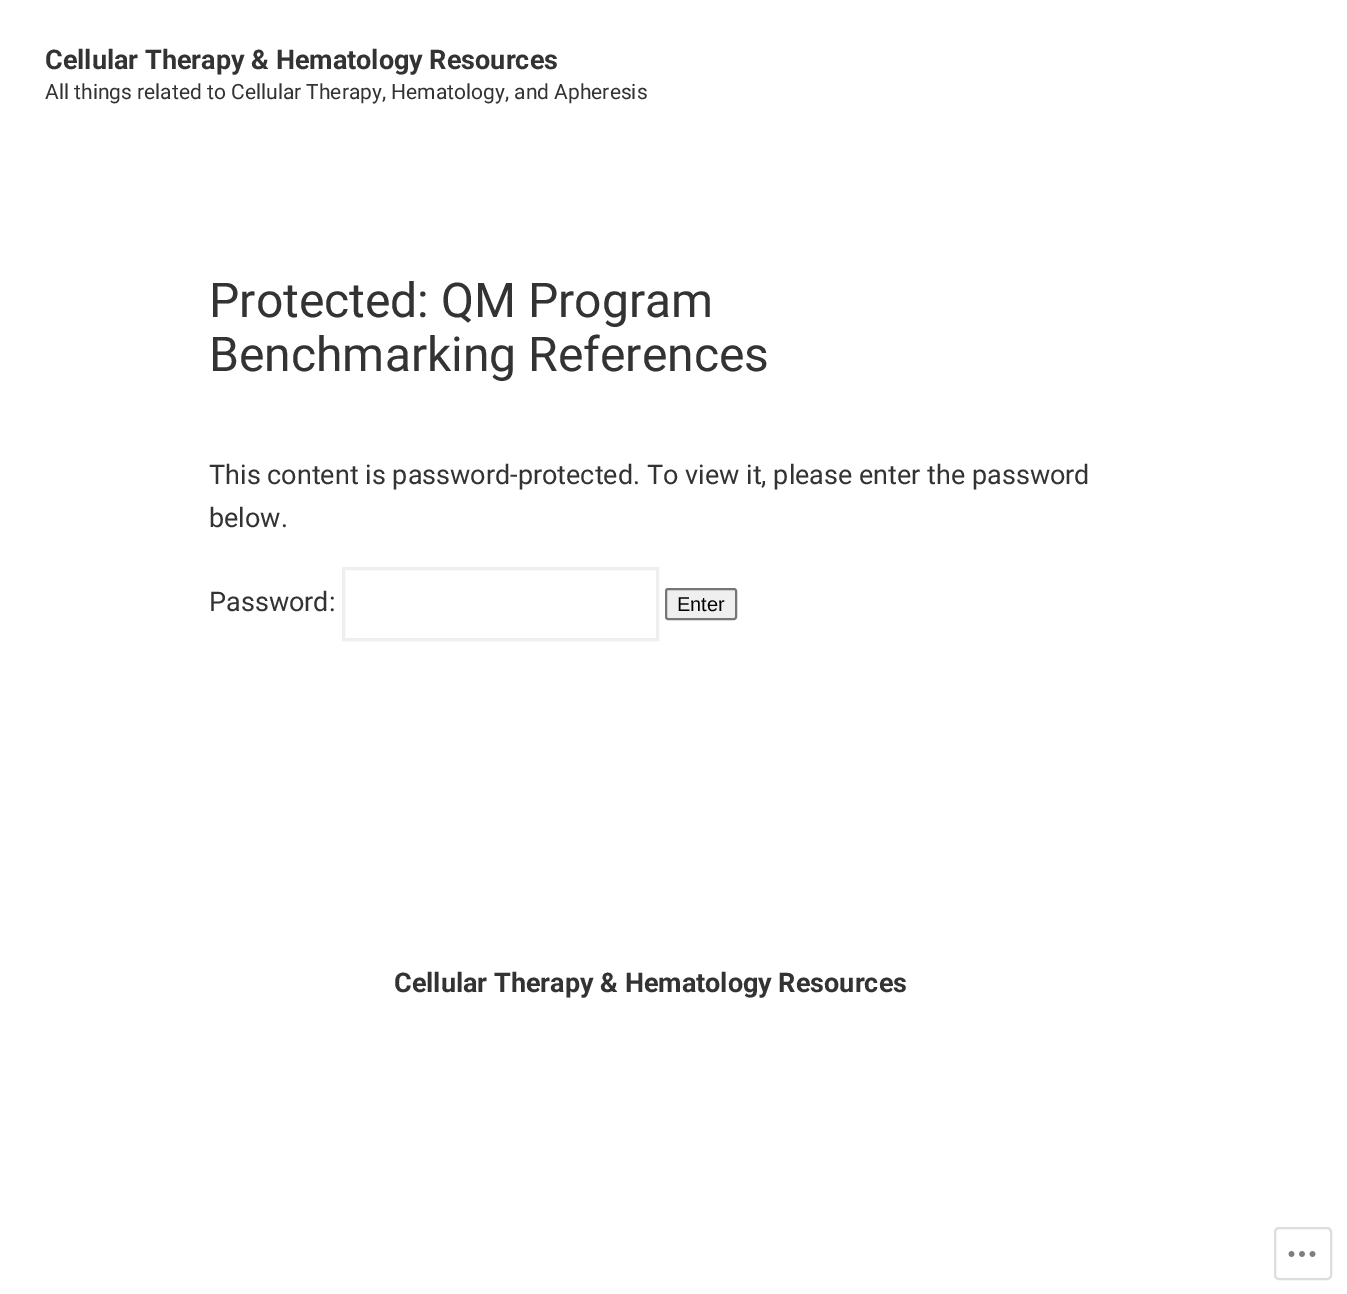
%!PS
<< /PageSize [1347 1294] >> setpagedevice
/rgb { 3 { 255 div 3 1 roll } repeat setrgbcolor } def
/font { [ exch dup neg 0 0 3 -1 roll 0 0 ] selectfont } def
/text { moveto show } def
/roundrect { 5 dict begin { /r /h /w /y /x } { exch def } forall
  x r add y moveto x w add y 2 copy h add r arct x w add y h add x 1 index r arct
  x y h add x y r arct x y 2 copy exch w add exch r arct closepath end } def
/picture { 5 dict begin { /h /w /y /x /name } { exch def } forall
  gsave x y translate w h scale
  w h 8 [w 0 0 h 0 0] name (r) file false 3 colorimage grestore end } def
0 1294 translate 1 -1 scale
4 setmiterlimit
255 255 255 rgb
0 0 1347 1294 rectfill
239 239 239 rgb
3 setlinewidth
343.5 568.5 314 71 rectstroke
666 589 70 30 2 roundrect gsave fill grestore
118 118 118 rgb
2 setlinewidth
stroke
221 221 223 rgb
1275 1228 56 51 4 roundrect stroke
(img_01.rgb) 1288 1251 28 6 picture
/Roboto-Bold 27 font
51 51 51 rgb
(Cellular Therapy & Hematology Resources) 45 69 text
/Roboto-Regular 21 font
(All things related to Cellular Therapy, Hematology, and Apheresis) 45 99 text
/Roboto-Regular 48 font
(Protected: QM Program) 209 317 text
(Benchmarking References) 209 371 text
/Roboto-Regular 27 font
(This content is password-protected. To view it, please enter the password) 209 484 text
(below.) 209 527 text
(Password:) 209 611 text
/LiberationSans-Regular 20 font
0 0 0 rgb
(Enter) 677 611 text
/Roboto-Bold 27 font
51 51 51 rgb
(Cellular Therapy & Hematology Resources) 394 992 text
showpage
